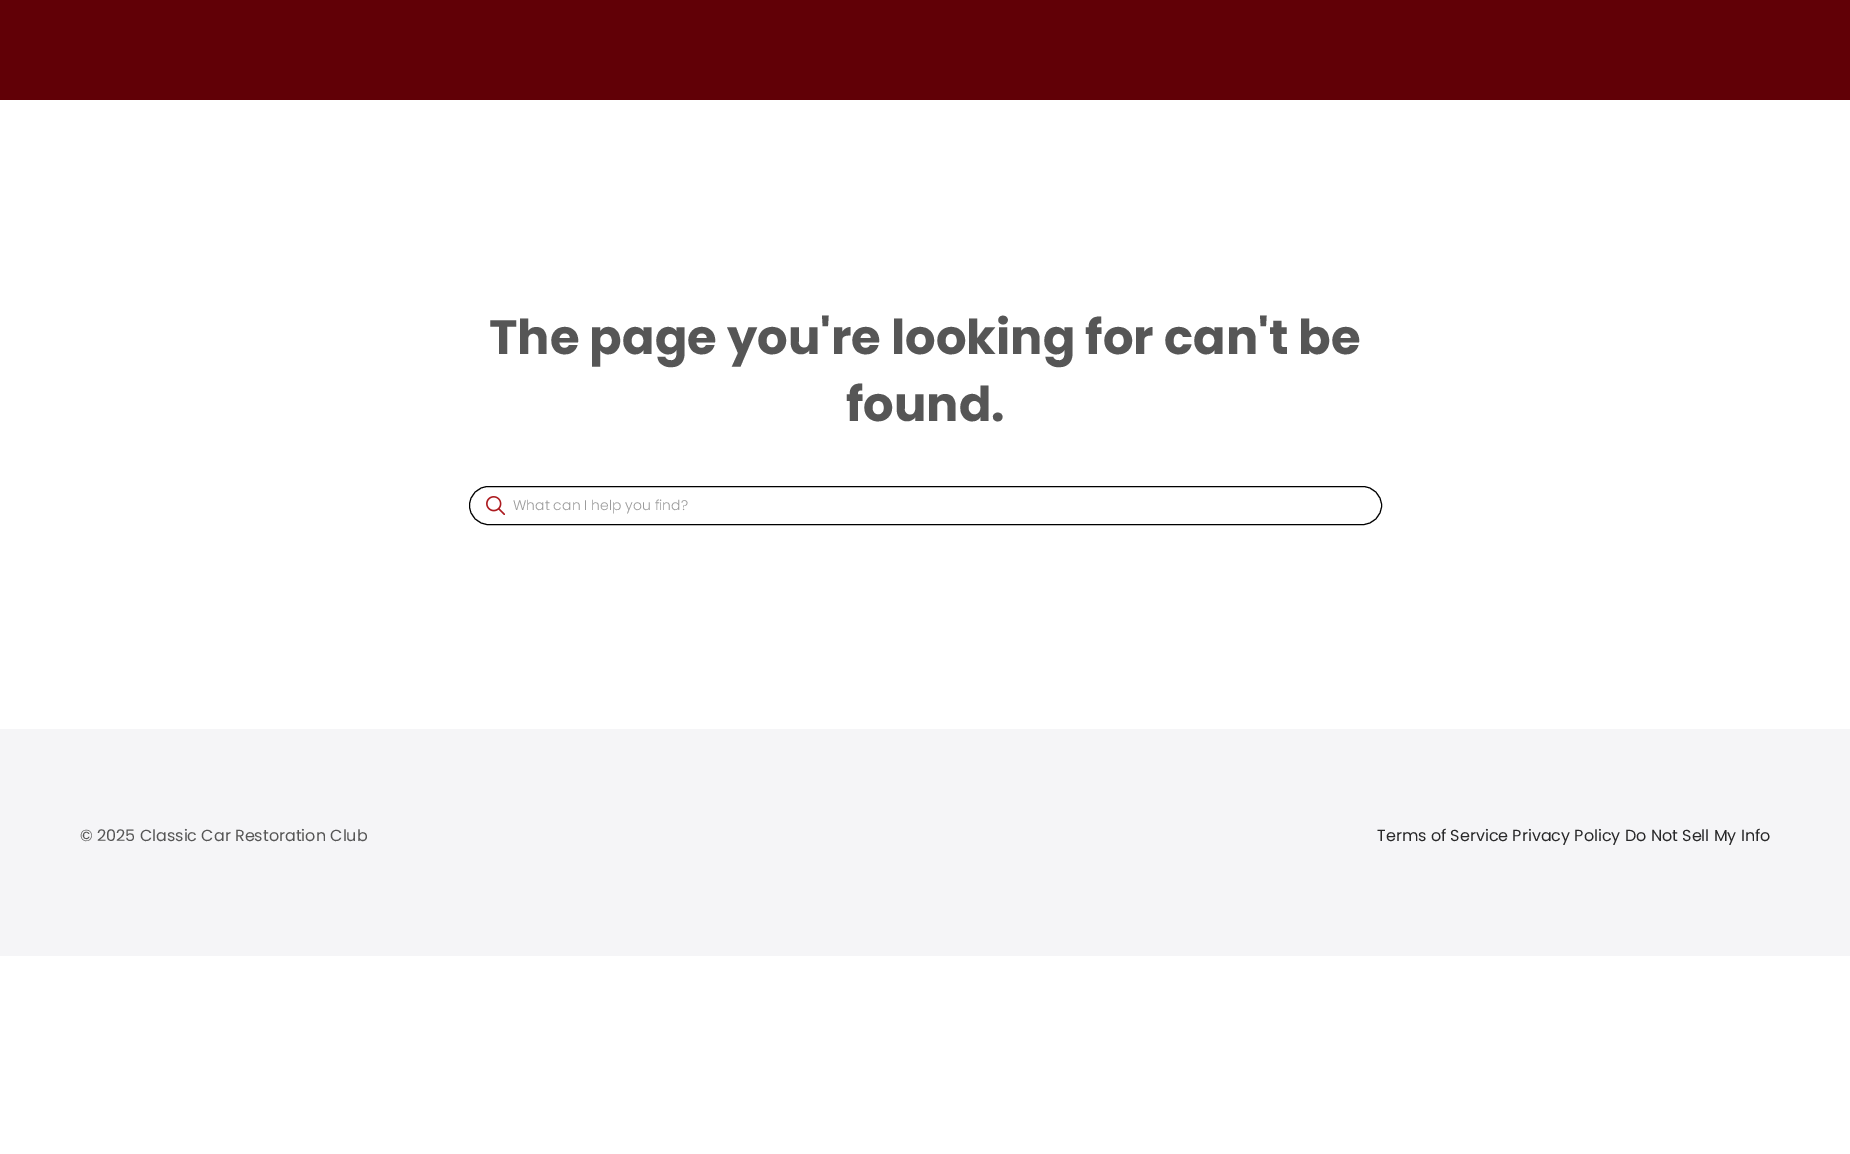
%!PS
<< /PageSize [1850 1154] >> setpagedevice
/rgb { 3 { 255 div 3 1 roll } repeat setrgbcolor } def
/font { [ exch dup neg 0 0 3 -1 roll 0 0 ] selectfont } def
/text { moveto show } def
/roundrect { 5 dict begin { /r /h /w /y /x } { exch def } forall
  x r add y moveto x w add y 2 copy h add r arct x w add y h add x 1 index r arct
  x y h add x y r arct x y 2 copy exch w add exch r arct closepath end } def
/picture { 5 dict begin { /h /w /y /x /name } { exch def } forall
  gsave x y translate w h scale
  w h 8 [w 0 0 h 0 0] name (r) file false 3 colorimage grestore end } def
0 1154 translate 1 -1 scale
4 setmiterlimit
255 255 255 rgb
0 0 1850 1154 rectfill
97 0 6 rgb
0 0 1850 100 rectfill
0 0 0 rgb
469.5 486.5 912 38 19 roundrect stroke
(img_01.rgb) 486 496 19 19 picture
245 245 247 rgb
0 729 1850 227 rectfill
/Poppins-Bold 48 font
86 86 86 rgb
(The page you're looking for can't be) 489 354 text
(found.) 846 421 text
/Poppins-Light 14 font
155 155 155 rgb
(What can I help you find?) 513 510 text
/Poppins-Regular 16 font
86 86 86 rgb
(© 2025 Classic Car Restoration Club) 80 841 text
40 40 41 rgb
(Terms of Service Privacy Policy Do Not Sell My Info) 1377 841 text
showpage
